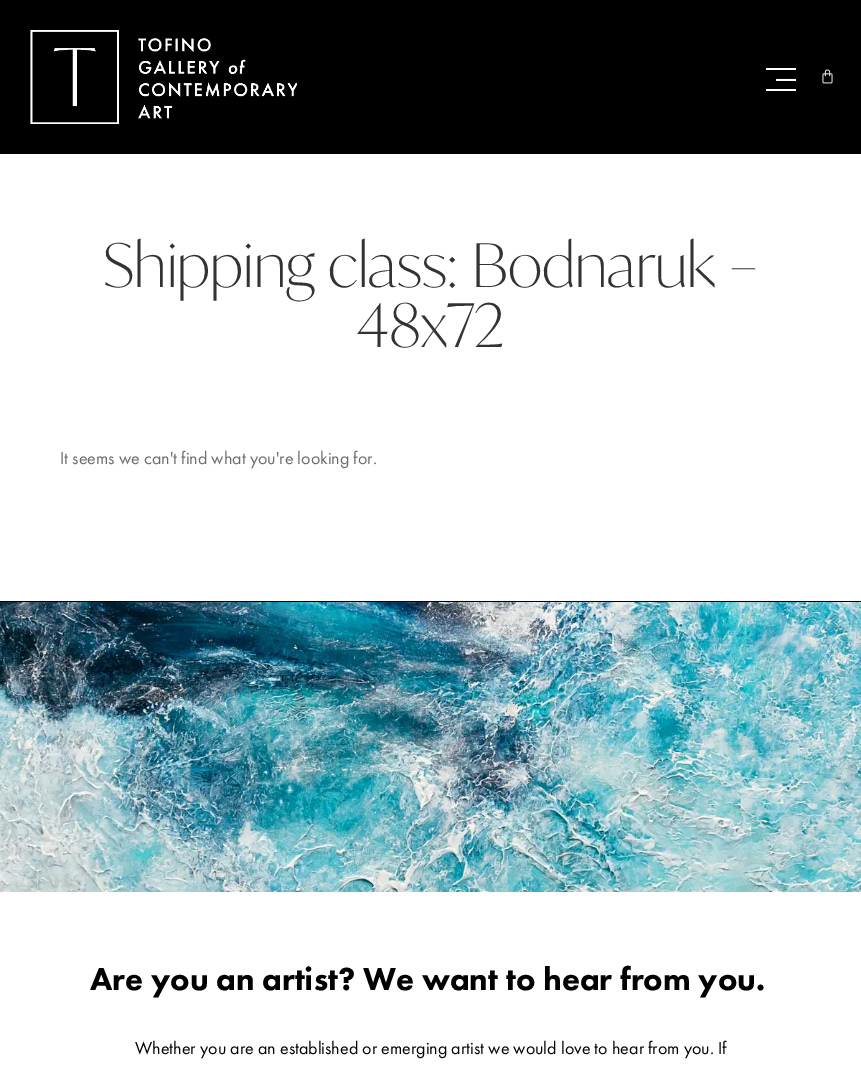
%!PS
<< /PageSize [861 1076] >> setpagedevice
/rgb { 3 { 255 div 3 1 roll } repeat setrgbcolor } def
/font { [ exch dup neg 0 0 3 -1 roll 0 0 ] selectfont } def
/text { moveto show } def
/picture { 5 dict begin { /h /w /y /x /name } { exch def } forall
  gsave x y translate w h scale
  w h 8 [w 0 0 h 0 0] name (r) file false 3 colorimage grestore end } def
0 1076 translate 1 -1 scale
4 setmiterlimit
255 255 255 rgb
0 0 861 1076 rectfill
0 0 0 rgb
0 0 861 154 rectfill
(img_01.rgb) 30 30 267 94 picture
(img_02.rgb) 766 68 30 23 picture
(img_03.rgb) 822 69 11 15 picture
0 601 861 1 rectfill
(img_04.rgb) 0 602 861 290 picture
/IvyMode-Thin 60 font
51 51 51 rgb
(Shipping class: Bodnaruk –) 103 287 text
(48x72) 357 347 text
/FuturaPT-Regular 18 font
107 107 107 rgb
(It seems we can't find what you're looking for.) 60 464 text
/FuturaPT-Black 33 font
0 0 0 rgb
(Are you an artist? We want to hear from you.) 90 990 text
/FuturaPT-Regular 18 font
(Whether you are an established or emerging artist we would love to hear from you. If) 135 1054 text
showpage
